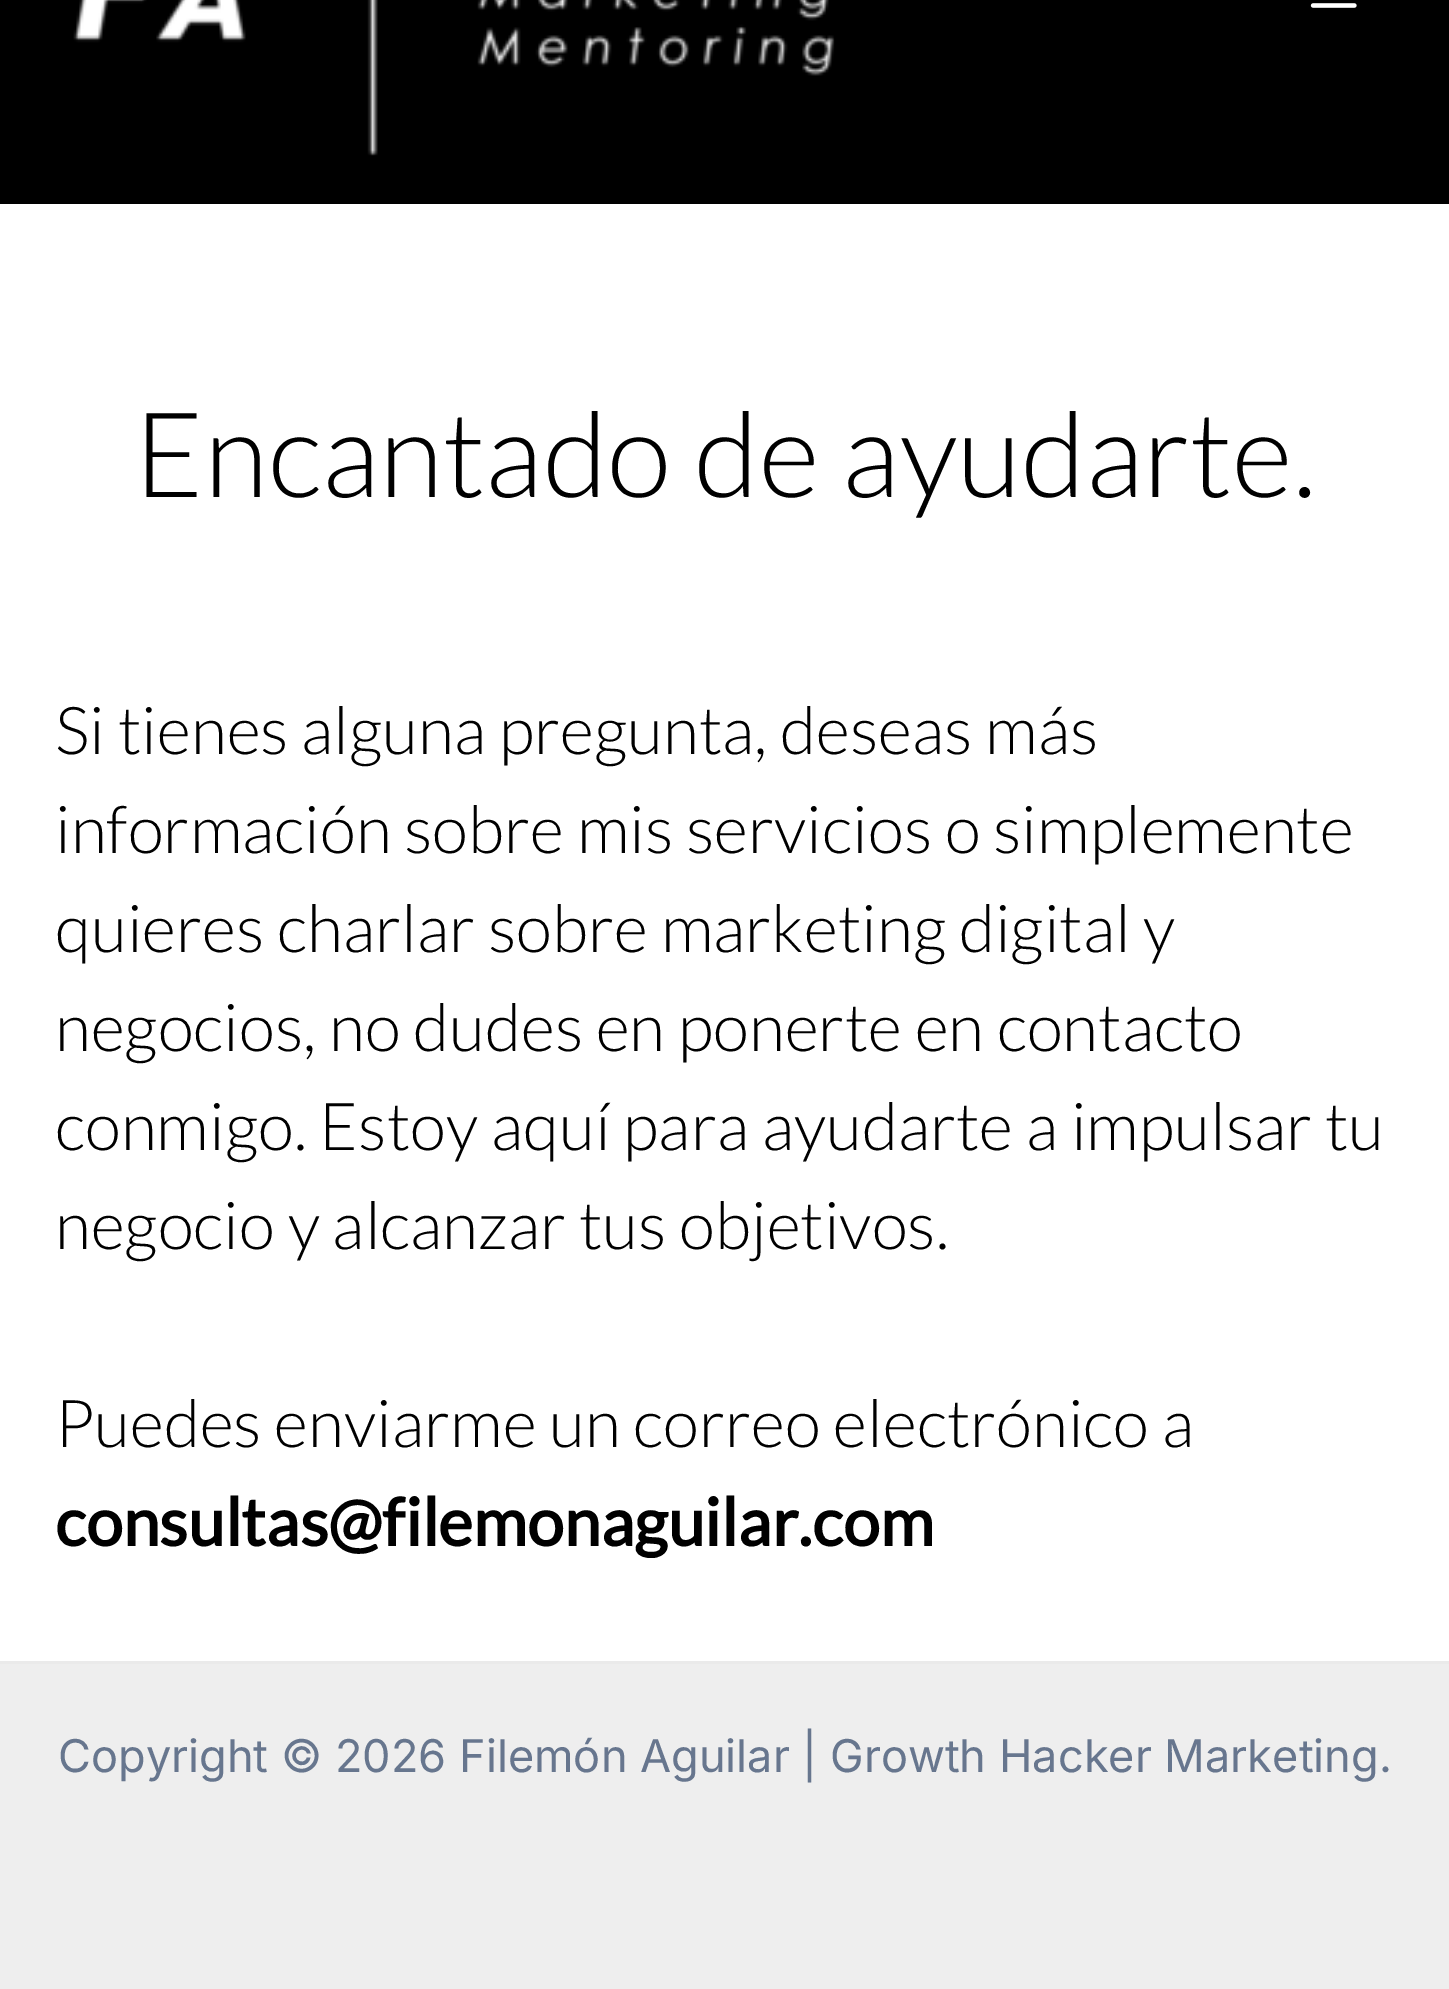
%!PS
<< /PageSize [1449 1989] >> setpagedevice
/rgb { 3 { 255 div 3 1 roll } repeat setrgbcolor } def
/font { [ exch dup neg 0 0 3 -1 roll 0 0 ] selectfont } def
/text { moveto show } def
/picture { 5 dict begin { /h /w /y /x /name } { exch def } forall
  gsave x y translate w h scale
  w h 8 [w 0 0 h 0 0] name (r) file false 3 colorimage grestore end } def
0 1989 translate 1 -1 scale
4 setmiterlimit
255 255 255 rgb
0 0 1449 1989 rectfill
0 0 0 rgb
0 0 1449 204 rectfill
(img_01.rgb) 73 0 762 156 picture
(img_02.rgb) 1310 3 47 5 picture
238 238 238 rgb
0 1664 1449 325 rectfill
234 234 234 rgb
0 1661 1449 3 rectfill
/Lato-Light 118.25 font
0 0 0 rgb
(Encantado de ayudarte.) 134 497 text
/Lato-Light 66 font
(Si tienes alguna pregunta, deseas más) 55 754 text
(información sobre mis servicios o simplemente) 55 853 text
(quieres charlar sobre marketing digital y) 55 952 text
(negocios, no dudes en ponerte en contacto) 55 1051 text
(conmigo. Estoy aquí para ayudarte a impulsar tu) 55 1150 text
(negocio y alcanzar tus objetivos.) 55 1249 text
(Puedes enviarme un correo electrónico a) 55 1447 text
/Lato-Bold 66 font
(consultas@filemonaguilar.com) 55 1546 text
/Inter-Regular 45.15 font
103 118 142 rgb
(Copyright © 2026 Filemón Aguilar | Growth Hacker Marketing.) 58 1772 text
showpage
